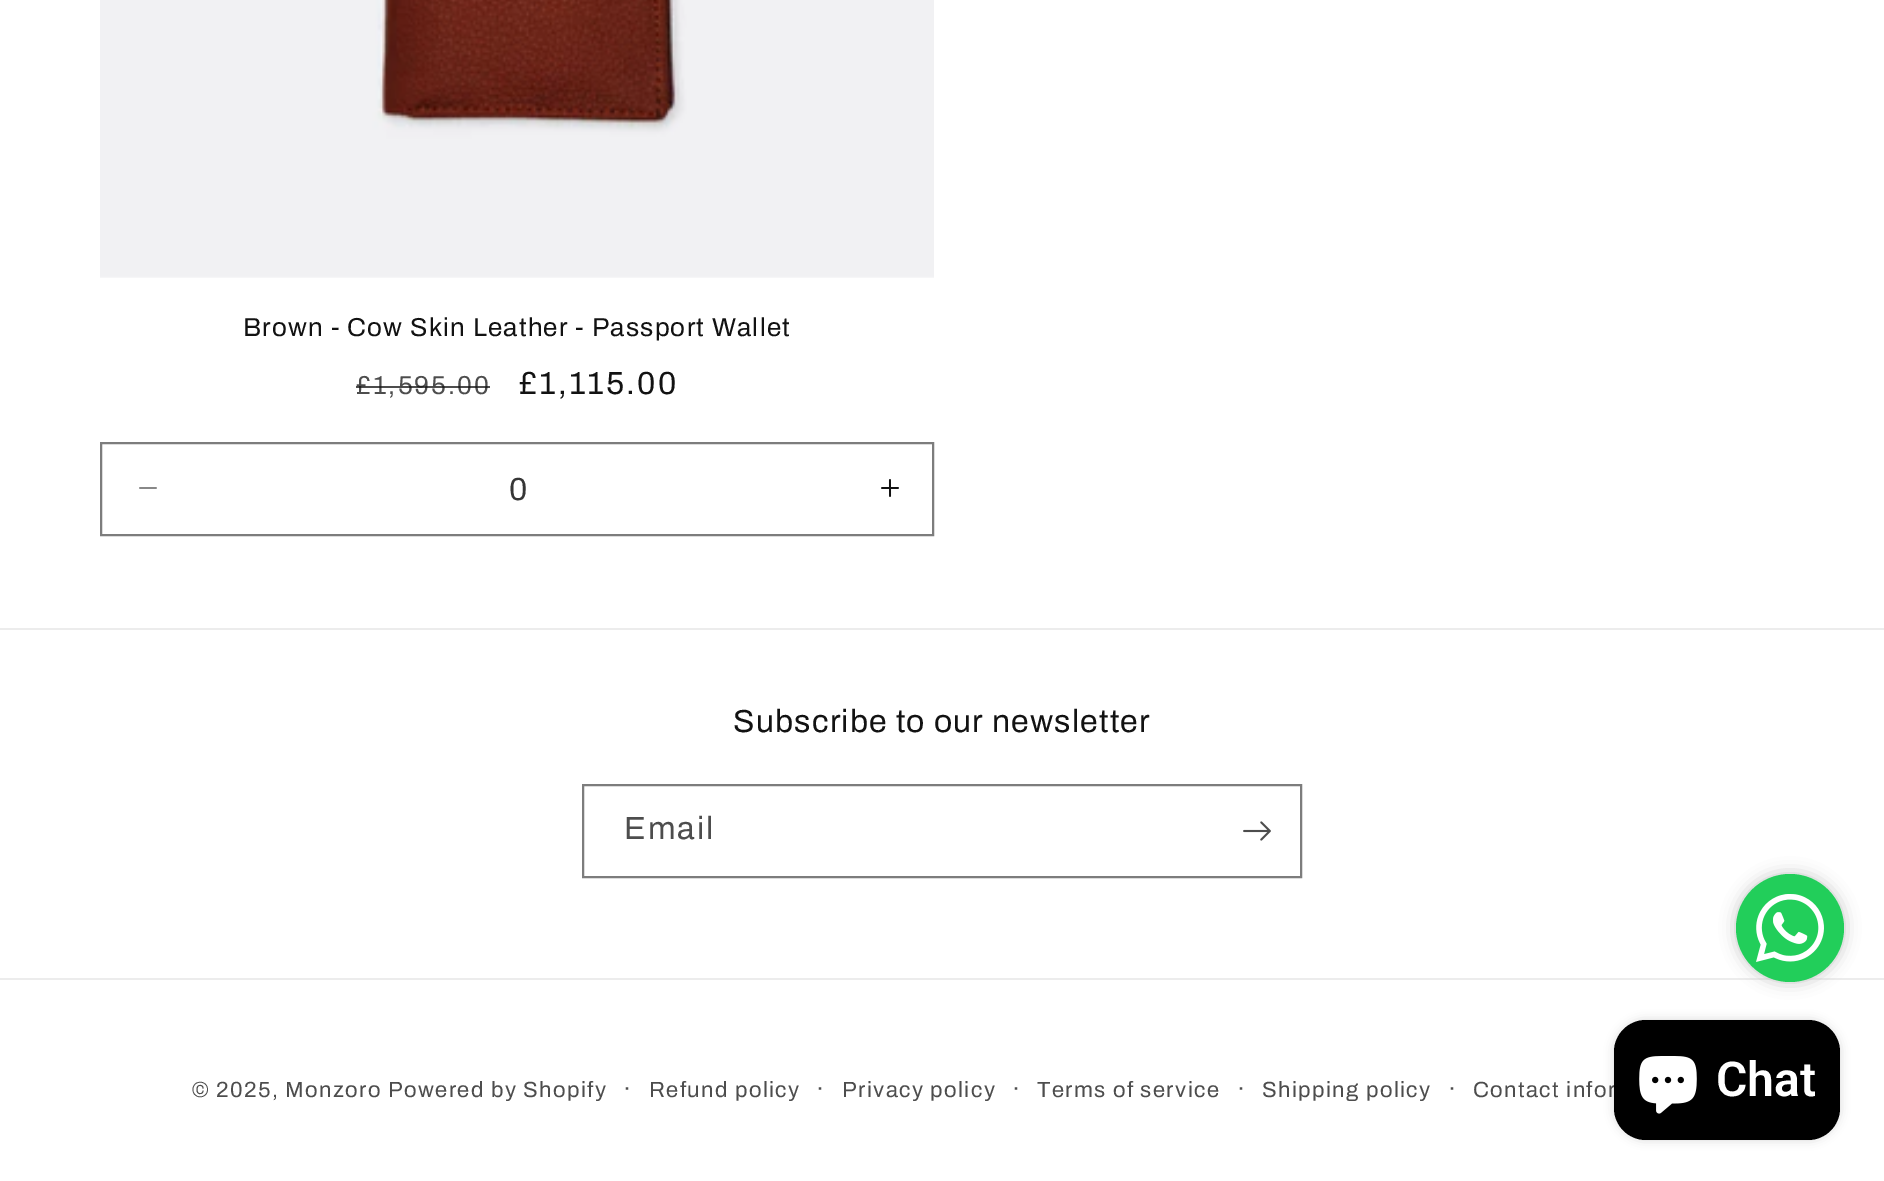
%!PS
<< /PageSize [1884 1181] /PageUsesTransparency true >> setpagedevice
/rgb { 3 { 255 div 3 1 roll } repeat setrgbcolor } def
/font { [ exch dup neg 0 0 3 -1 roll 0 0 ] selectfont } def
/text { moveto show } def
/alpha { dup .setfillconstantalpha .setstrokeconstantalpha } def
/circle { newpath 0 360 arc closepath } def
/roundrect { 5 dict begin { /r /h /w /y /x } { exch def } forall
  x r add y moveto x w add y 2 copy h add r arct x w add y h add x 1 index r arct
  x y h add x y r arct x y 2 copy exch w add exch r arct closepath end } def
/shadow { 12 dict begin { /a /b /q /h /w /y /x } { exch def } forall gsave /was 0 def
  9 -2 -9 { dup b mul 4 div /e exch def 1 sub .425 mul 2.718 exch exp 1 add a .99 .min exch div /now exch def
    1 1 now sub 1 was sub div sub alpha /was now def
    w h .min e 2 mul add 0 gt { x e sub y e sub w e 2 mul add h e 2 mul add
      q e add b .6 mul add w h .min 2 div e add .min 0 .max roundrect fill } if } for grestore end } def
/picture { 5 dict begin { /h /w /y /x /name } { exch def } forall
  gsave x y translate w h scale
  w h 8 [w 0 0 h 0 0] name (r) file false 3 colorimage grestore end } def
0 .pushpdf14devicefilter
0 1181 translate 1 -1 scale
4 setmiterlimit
255 255 255 rgb
0 0 1884 1181 rectfill
(img_01.rgb) 100 0 834 278 picture
(img_02.rgb) 139 487 18 2 picture
(img_03.rgb) 881 479 18 18 picture
125 125 125 rgb
2 setlinewidth
101 443 832 92 rectstroke
236 236 236 rgb
0 628 1884 2 rectfill
125 125 125 rgb
583 785 718 92 rectstroke
(img_04.rgb) 1243 821 28 20 picture
236 236 236 rgb
0 978 1884 2 rectfill
194 194 194 rgb
1736 874 108 108 54 8 1 shadow
34 206 90 rgb
1790 928 54 circle fill
(img_05.rgb) 1756 894 68 68 picture
0 0 0 rgb
1614 1020 226 120 32 5 0.15 shadow
/Archivo-Regular 26 font
18 18 18 rgb
243 336 moveto 1.2 0 (Brown - Cow Skin Leather - Passport Wallet) ashow
77 77 77 rgb
356 394 moveto 2 0 (£1,595.00) ashow
0.75 alpha
18 18 18 rgb
356 386 134 2 rectfill
/Archivo-Regular 32 font
1 alpha
519 394 moveto 2 0 (£1,115.00) ashow
54 54 54 rgb
(0) 509 500 text
18 18 18 rgb
733 732 moveto 1.2 0 (Subscribe to our newsletter) ashow
77 77 77 rgb
624 839 moveto 2 0 (Email) ashow
/Archivo-Regular 22 font
192 1097 moveto 1.4 0 (© 2025, Monzoro) ashow
388 1097 moveto 1.4 0 (Powered by Shopify) ashow
/Archivo-Regular 24 font
623 1097 moveto 1.4 0 (·) ashow
/Archivo-Regular 22 font
649 1097 moveto 1.4 0 (Refund policy) ashow
/Archivo-Regular 24 font
816 1097 moveto 1.4 0 (·) ashow
/Archivo-Regular 22 font
842 1097 moveto 1.4 0 (Privacy policy) ashow
/Archivo-Regular 24 font
1012 1097 moveto 1.4 0 (·) ashow
/Archivo-Regular 22 font
1037 1097 moveto 1.4 0 (Terms of service) ashow
/Archivo-Regular 24 font
1237 1097 moveto 1.4 0 (·) ashow
/Archivo-Regular 22 font
1262 1097 moveto 1.4 0 (Shipping policy) ashow
/Archivo-Regular 24 font
1448 1097 moveto 1.4 0 (·) ashow
/Archivo-Regular 22 font
1473 1097 moveto 1.4 0 (Contact infor) ashow
0 0 0 rgb
1614 1020 226 120 32 roundrect fill
(img_06.rgb) 1639 1056 58 58 picture
/Roboto-SemiBold 48 font
255 255 255 rgb
(Chat) 1716 1096 text
.poppdf14devicefilter showpage
